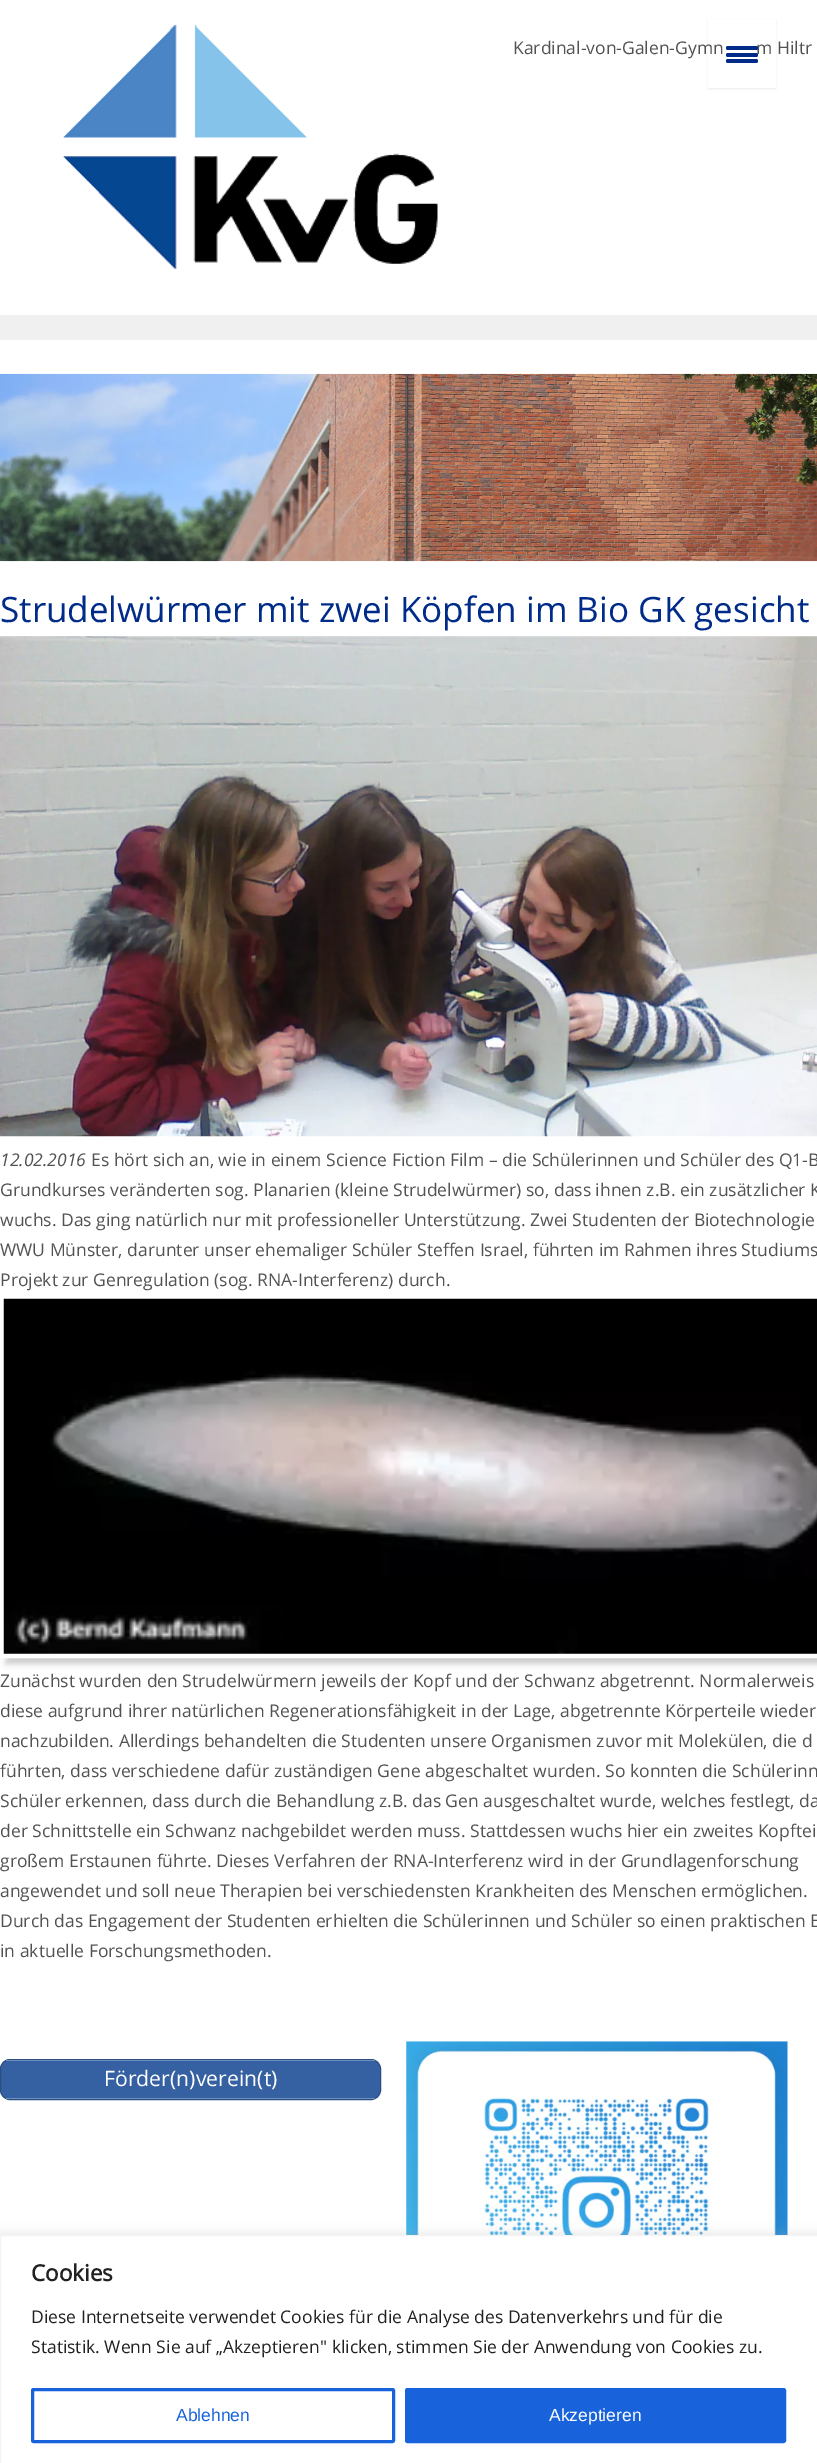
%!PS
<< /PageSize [817 2463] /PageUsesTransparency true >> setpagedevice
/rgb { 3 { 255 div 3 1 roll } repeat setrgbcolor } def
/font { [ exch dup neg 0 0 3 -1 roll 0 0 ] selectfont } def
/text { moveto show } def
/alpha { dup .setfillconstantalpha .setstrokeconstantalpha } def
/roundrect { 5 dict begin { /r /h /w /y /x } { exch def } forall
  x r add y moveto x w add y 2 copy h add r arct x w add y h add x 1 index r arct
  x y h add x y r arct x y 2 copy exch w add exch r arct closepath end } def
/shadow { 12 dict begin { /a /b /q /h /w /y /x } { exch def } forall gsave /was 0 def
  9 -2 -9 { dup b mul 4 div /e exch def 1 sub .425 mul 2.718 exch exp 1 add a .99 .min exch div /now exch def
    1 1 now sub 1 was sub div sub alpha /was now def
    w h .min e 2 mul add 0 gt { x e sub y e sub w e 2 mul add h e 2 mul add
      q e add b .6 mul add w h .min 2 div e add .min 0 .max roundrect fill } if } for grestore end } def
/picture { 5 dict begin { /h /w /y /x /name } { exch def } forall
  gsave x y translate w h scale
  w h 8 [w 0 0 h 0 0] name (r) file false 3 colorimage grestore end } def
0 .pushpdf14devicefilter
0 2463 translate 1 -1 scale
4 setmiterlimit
255 255 255 rgb
0 0 817 2463 rectfill
gsave
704 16 moveto 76 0 rlineto 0 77 rlineto -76 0 rlineto closepath 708 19 moveto 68 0 rlineto 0 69 rlineto -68 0 rlineto closepath eoclip newpath
64 64 64 rgb
708 20 68 69 0 1 0.1 shadow
grestore
0 43 137 rgb
726 59 32 4 2 roundrect fill
(img_01.rgb) 63 24 375 245 picture
240 240 240 rgb
0 315 817 25 rectfill
(img_02.rgb) 0 373 817 189 picture
(img_03.rgb) 0 636 817 501 picture
0 0 0 rgb
6 1301 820 363 0 3 0.2 shadow
255 255 255 rgb
4 setlinewidth
2 1297 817 359 rectstroke
(img_04.rgb) 3 1298 814 356 picture
53 96 162 rgb
0.5 2059.5 380 40 9.5 roundrect gsave fill grestore
43 77 130 rgb
1 setlinewidth
stroke
114 144 190 rgb
6 2060 369 1 rectfill
6 2098 369 1 rectfill
(img_05.rgb) 406 2041 382 194 picture
172 171 171 rgb
0 2234 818 229 0 6 0.3 shadow
255 255 255 rgb
0.5 2235.5 moveto 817 0 rlineto 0 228 rlineto -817 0 rlineto closepath gsave fill grestore
244 244 244 rgb
stroke
24 99 220 rgb
3 setlinewidth
32.5 2389.5 361 52 1 roundrect stroke
406.5 2389.5 378 52 1 roundrect gsave fill grestore
stroke
/OpenSans-Regular 17.5 font
82 82 82 rgb
(Kardinal-von-Galen-Gymn) 513 54 text
(m Hiltr) 756 54 text
0 43 137 rgb
726 46 32 4 2 roundrect fill
726 53 32 4 2 roundrect fill
/OpenSans-Regular 35 font
(Strudelwürmer mit zwei Köpfen im Bio GK gesicht) 0 622 text
/OpenSans-Italic 17.5 font
82 82 82 rgb
(12.02.2016) 0 1166 text
/OpenSans-Regular 17.5 font
(Es hört sich an, wie in einem Science Fiction Film – die Schülerinnen und Schüler des Q1-B) 91 1166 text
(Grundkurses veränderten sog. Planarien \(kleine Strudelwürmer\) so, dass ihnen z.B. ein zusätzlicher K) 0 1196 text
(wuchs. Das ging natürlich nur mit professioneller Unterstützung. Zwei Studenten der Biotechnologie) 0 1226 text
(WWU Münster, darunter unser ehemaliger Schüler Steffen Israel, führten im Rahmen ihres Studiums) 0 1256 text
(Projekt zur Genregulation \(sog. RNA-Interferenz\) durch.) 0 1286 text
(Zunächst wurden den Strudelwürmern jeweils der Kopf und der Schwanz abgetrennt. Normalerweis) 0 1687 text
(diese aufgrund ihrer natürlichen Regenerationsfähigkeit in der Lage, abgetrennte Körperteile wieder) 0 1717 text
(nachzubilden. Allerdings behandelten die Studenten unsere Organismen zuvor mit Molekülen, die d) 0 1747 text
(führten, dass verschiedene dafür zuständigen Gene abgeschaltet wurden. So konnten die Schülerinn) 0 1777 text
(Schüler erkennen, dass durch die Behandlung z.B. das Gen ausgeschaltet wurde, welches festlegt, da) 0 1807 text
(der Schnittstelle ein Schwanz nachgebildet werden muss. Stattdessen wuchs hier ein zweites Kopftei) 0 1837 text
(großem Erstaunen führte. Dieses Verfahren der RNA-Interferenz wird in der Grundlagenforschung) 0 1867 text
(angewendet und soll neue Therapien bei verschiedensten Krankheiten des Menschen ermöglichen.) 0 1897 text
(Durch das Engagement der Studenten erhielten die Schülerinnen und Schüler so einen praktischen E) 0 1927 text
(in aktuelle Forschungsmethoden.) 0 1957 text
/OpenSans-Regular 21.25 font
255 255 255 rgb
(Förder\(n\)verein\(t\)) 104 2086 text
/OpenSans-Bold 22.5 font
33 33 33 rgb
(Cookies) 31 2281 text
/OpenSans-Regular 17.5 font
(Diese Internetseite verwendet Cookies für die Analyse des Datenverkehrs und für die) 31 2323 text
(Statistik. Wenn Sie auf „Akzeptieren" klicken, stimmen Sie der Anwendung von Cookies zu.) 31 2353 text
/LiberationSans-Regular 17.5 font
24 99 220 rgb
(Ablehnen) 176 2421 text
255 255 255 rgb
(Akzeptieren) 549 2421 text
.poppdf14devicefilter showpage
